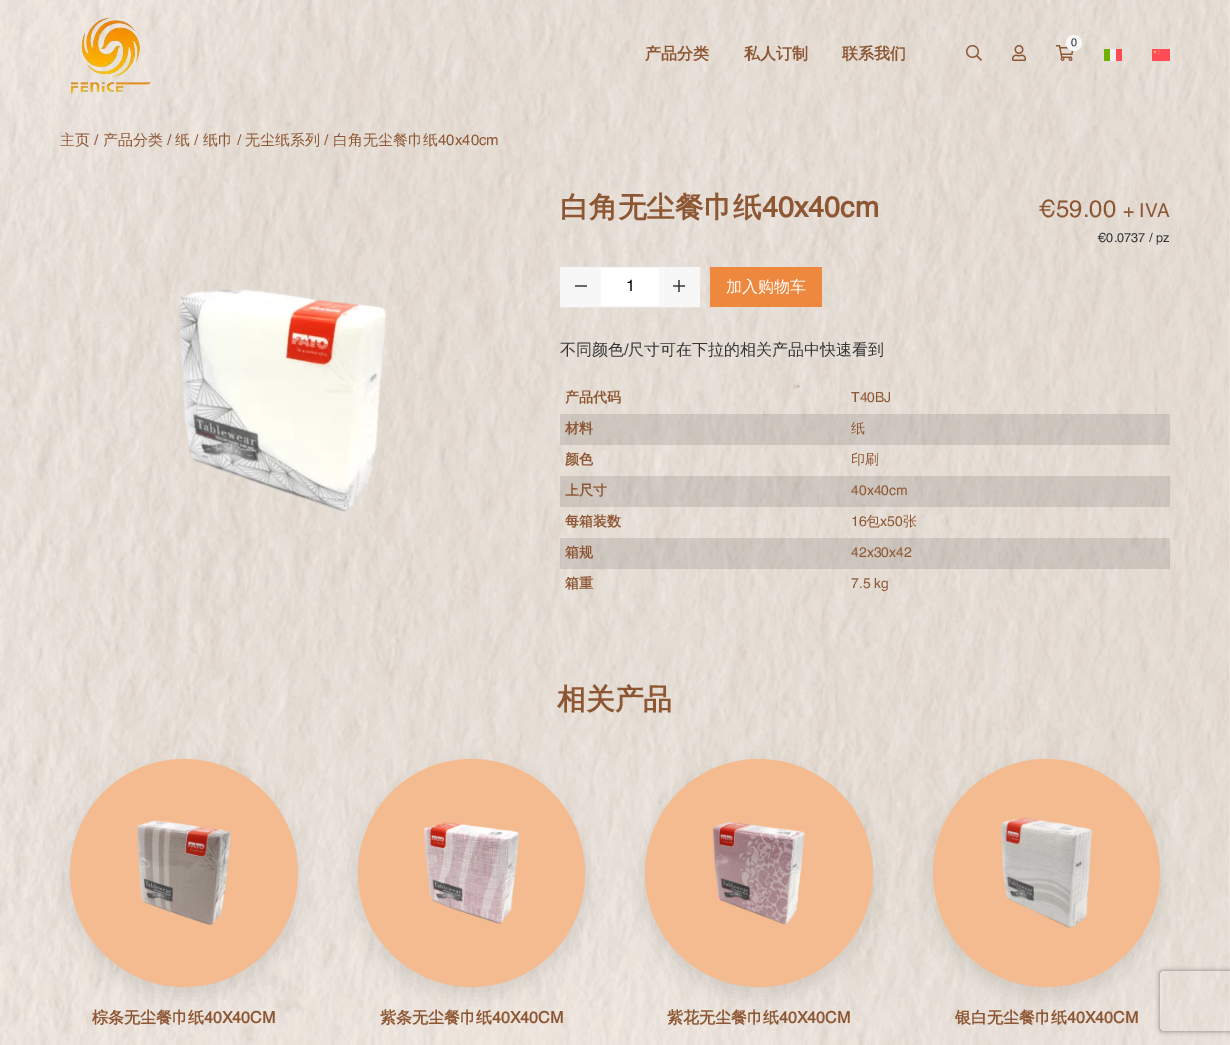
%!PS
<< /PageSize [1230 1045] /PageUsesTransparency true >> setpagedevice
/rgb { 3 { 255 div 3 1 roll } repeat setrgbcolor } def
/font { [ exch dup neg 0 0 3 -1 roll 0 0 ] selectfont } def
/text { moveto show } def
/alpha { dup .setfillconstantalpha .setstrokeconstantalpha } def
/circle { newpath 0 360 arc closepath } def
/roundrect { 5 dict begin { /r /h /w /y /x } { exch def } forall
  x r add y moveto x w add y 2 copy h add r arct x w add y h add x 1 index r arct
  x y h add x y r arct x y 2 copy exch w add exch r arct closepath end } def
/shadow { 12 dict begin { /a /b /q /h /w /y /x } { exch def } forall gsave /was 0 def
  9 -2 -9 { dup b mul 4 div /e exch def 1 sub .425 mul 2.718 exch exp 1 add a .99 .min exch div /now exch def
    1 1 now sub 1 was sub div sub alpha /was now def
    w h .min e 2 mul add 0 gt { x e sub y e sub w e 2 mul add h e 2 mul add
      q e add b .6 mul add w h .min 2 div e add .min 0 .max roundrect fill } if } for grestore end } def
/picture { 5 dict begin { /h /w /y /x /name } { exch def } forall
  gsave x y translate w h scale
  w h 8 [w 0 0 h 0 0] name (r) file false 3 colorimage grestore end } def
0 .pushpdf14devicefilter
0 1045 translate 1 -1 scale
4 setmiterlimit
255 255 255 rgb
0 0 1230 1045 rectfill
(img_01.rgb) 0 0 1230 1045 picture
(img_02.rgb) 70 17 81 78 picture
(img_03.rgb) 1056 45 18 16 picture
247 247 247 rgb
1074 43 8 circle fill
(img_04.rgb) 966 45 16 16 picture
(img_05.rgb) 1012 45 14 16 picture
240 240 240 rgb
1110 49 6 12 rectfill
255 75 85 rgb
1116 49 6 12 rectfill
115 175 0 rgb
1104 49 6 12 rectfill
(img_06.rgb) 1152 49 18 12 picture
(img_07.rgb) 178 289 209 223 picture
247 247 247 rgb
560.5 267.5 139 39 rectstroke
561 268 40 38 rectfill
104 104 104 rgb
575 285 12 2 rectfill
255 255 255 rgb
601 268 58 38 rectfill
247 247 247 rgb
659 268 40 38 rectfill
(img_08.rgb) 673 280 12 12 picture
238 136 62 rgb
710 267 112 40 rectfill
0.1 alpha
0 0 0 rgb
560 414 610 31 rectfill
560 476 610 31 rectfill
560 538 610 31 rectfill
1 alpha
70 767 228 228 114 9 0.1 shadow
244 187 144 rgb
184 873 114 circle fill
(img_09.rgb) 137 820 94 106 picture
0 0 0 rgb
358 767 227 228 113.5 9 0.1 shadow
244 187 144 rgb
358 759 227 228 113.5 roundrect fill
(img_10.rgb) 424 822 96 102 picture
0 0 0 rgb
645 767 228 228 114 9 0.1 shadow
244 187 144 rgb
759 873 114 circle fill
(img_11.rgb) 712 821 93 104 picture
0 0 0 rgb
933 767 227 228 113.5 9 0.1 shadow
244 187 144 rgb
933 759 227 228 113.5 roundrect fill
(img_12.rgb) 1000 818 93 110 picture
gsave
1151 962 moveto 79 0 rlineto 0 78 rlineto -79 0 rlineto closepath 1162 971 moveto 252 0 rlineto 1 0 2 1 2 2 rcurveto 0 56 rlineto 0 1 -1 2 -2 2 rcurveto -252 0 rlineto -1 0 -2 -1 -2 -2 rcurveto 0 -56 rlineto 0 -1 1 -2 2 -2 rcurveto closepath eoclip newpath
128 128 128 rgb
1160 971 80 60 2 2.5 1 shadow
grestore
/Helvetica-Regular 11 font
51 51 51 rgb
(0) 1071 46 text
/WenQuanYiZenHei-Bold 16 font
142 87 52 rgb
(产品分类) 645 59 text
(私人订制) 744 59 text
(联系我们) 842 59 text
/WenQuanYiZenHei-Medium 15 font
(主页) 60 145 text
/Helvetica-Regular 15 font
(/) 94 145 text
/WenQuanYiZenHei-Medium 15 font
(产品分类) 103 145 text
/Helvetica-Regular 15 font
(/) 167 145 text
/WenQuanYiZenHei-Medium 15 font
(纸) 175 145 text
/Helvetica-Regular 15 font
(/) 194 145 text
/WenQuanYiZenHei-Medium 15 font
(纸巾) 203 145 text
/Helvetica-Regular 15 font
(/) 237 145 text
/WenQuanYiZenHei-Medium 15 font
(无尘纸系列) 245 145 text
/Helvetica-Regular 15 font
(/) 324 145 text
/WenQuanYiZenHei-Medium 15 font
(白角无尘餐巾纸) 333 145 text
/Helvetica-Regular 15 font
(40x40cm) 438 145 text
/WenQuanYiZenHei-Bold 28.75 font
(白角无尘餐巾纸) 560 217 text
/Helvetica-Bold 28.75 font
(40x40cm) 762 217 text
/Helvetica-Regular 24 font
(€59.00) 1038 217 text
/Helvetica-Regular 19 font
(+ IVA) 1123 217 text
/Helvetica-Regular 12.75 font
51 51 51 rgb
(€0.0737 / pz) 1097 242 text
/Helvetica-Regular 16 font
0 0 0 rgb
(1) 626 291 text
/WenQuanYiZenHei-Medium 16 font
255 255 255 rgb
(加入购物车) 726 292 text
51 51 51 rgb
(不同颜色) 560 355 text
/Helvetica-Regular 16 font
(/) 624 355 text
/WenQuanYiZenHei-Medium 16 font
(尺寸可在下拉的相关产品中快速看到) 628 355 text
/WenQuanYiZenHei-Bold 14 font
142 87 52 rgb
(产品代码) 565 402 text
/Helvetica-Regular 14 font
(T40BJ) 851 402 text
/WenQuanYiZenHei-Bold 14 font
(材料) 565 433 text
/WenQuanYiZenHei-Medium 14 font
(纸) 851 433 text
/WenQuanYiZenHei-Bold 14 font
(颜色) 565 464 text
/WenQuanYiZenHei-Medium 14 font
(印刷) 851 464 text
/WenQuanYiZenHei-Bold 14 font
(上尺寸) 565 495 text
/Helvetica-Regular 14 font
(40x40cm) 851 495 text
/WenQuanYiZenHei-Bold 14 font
(每箱装数) 565 526 text
/Helvetica-Regular 14 font
(16) 851 526 text
/WenQuanYiZenHei-Medium 14 font
(包) 866 526 text
/Helvetica-Regular 14 font
(x50) 880 526 text
/WenQuanYiZenHei-Medium 14 font
(张) 903 526 text
/WenQuanYiZenHei-Bold 14 font
(箱规) 565 557 text
/Helvetica-Regular 14 font
(42x30x42) 851 557 text
/WenQuanYiZenHei-Bold 14 font
(箱重) 565 588 text
/Helvetica-Regular 14 font
(7.5 kg) 851 588 text
/WenQuanYiZenHei-Bold 28.75 font
(相关产品) 557 709 text
/WenQuanYiZenHei-Bold 16 font
(棕条无尘餐巾纸) 92 1023 text
/Helvetica-Bold 16 font
(40X40CM) 204 1023 text
/WenQuanYiZenHei-Bold 16 font
(紫条无尘餐巾纸) 380 1023 text
/Helvetica-Bold 16 font
(40X40CM) 492 1023 text
/WenQuanYiZenHei-Bold 16 font
(紫花无尘餐巾纸) 667 1023 text
/Helvetica-Bold 16 font
(40X40CM) 779 1023 text
/WenQuanYiZenHei-Bold 16 font
(银白无尘餐巾纸) 955 1023 text
/Helvetica-Bold 16 font
(40X40CM) 1067 1023 text
.poppdf14devicefilter showpage
